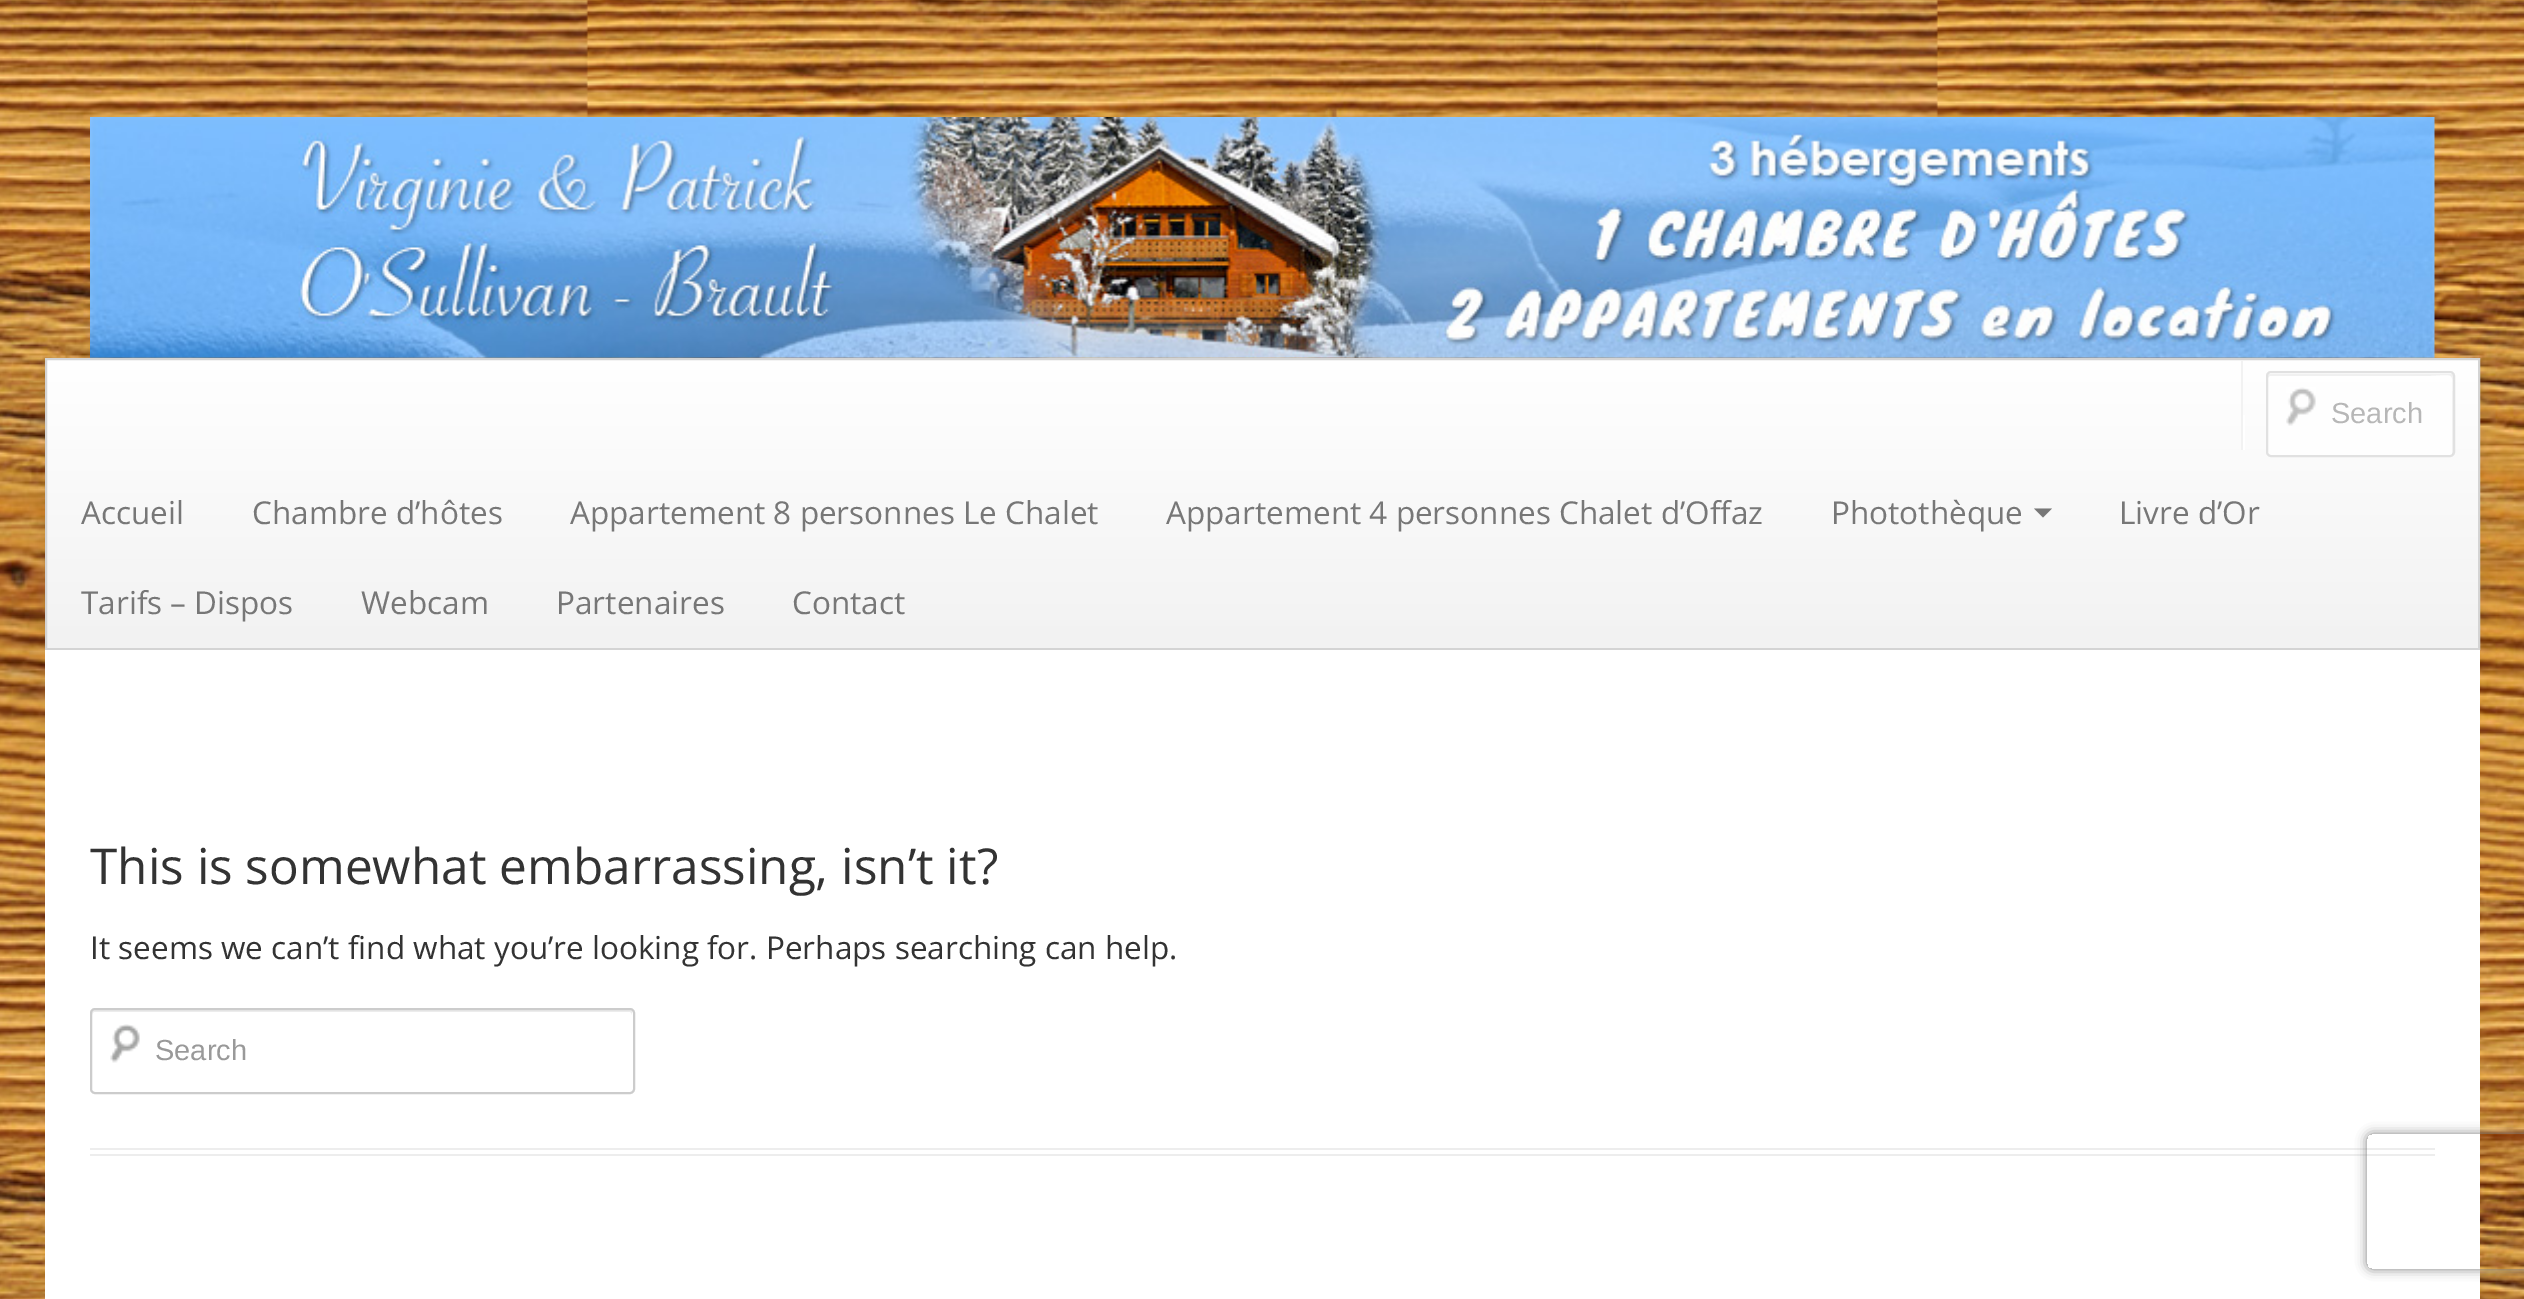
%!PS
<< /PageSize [2524 1299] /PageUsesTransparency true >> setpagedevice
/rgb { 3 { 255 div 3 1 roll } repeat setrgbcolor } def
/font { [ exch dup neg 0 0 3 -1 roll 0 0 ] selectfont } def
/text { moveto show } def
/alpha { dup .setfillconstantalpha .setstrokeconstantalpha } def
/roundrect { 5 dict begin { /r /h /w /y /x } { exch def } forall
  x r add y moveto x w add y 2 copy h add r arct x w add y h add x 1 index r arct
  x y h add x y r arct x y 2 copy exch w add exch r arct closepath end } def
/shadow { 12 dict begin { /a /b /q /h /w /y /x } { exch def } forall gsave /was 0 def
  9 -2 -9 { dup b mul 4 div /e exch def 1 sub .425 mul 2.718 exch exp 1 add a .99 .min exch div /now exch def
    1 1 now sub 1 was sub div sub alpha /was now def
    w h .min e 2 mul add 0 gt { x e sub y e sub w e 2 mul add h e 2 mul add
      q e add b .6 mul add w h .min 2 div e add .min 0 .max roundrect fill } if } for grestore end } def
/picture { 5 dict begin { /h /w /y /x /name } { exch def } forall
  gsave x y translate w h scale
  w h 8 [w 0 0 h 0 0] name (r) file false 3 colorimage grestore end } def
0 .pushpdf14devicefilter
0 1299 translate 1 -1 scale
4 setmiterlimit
255 255 255 rgb
0 0 2524 1299 rectfill
(img_01.rgb) 0 0 2524 1299 picture
0 0 0 rgb
45 360 2435 293 0 4.5 0.07 shadow
(img_02.rgb) 90 117 2345 241 picture
gsave 47 360 moveto 2431 0 rlineto 0 288 rlineto -2431 0 rlineto closepath clip newpath
<< /ShadingType 2 /ColorSpace /DeviceRGB /Coords [1262 360 1262 648] /Extend [true true] /Function << /FunctionType 2 /Domain [0 1] /C0 [1 1 1] /C1 [0.949 0.949 0.949] /N 1 >> >> shfill grestore
212 212 212 rgb
2 setlinewidth
46 359 2433 290 rectstroke
255 255 255 rgb
2243 415 2 35 rectfill
242 242 242 rgb
2241 360 2 90 rectfill
0.7 alpha
255 255 255 rgb
2266 371 189 86 5 roundrect fill
1 alpha
(img_03.rgb) 2286 387 30 39 picture
241 241 241 rgb
2270 376 moveto 150 0 rlineto 39 0 32 -9 32 27 rcurveto 0 52 rlineto 1 -1 1 -1 1 -2 rcurveto 0 -77 rlineto 0 -1 -1 -2 -2 -2 rcurveto -181 0 rlineto -1 0 -2 1 -2 2 rcurveto 0 2 rlineto 0 -1 1 -2 2 -2 rcurveto closepath fill
0.7 alpha
212 212 212 rgb
2267 372 187 84 4 roundrect stroke
1 alpha
119 119 119 rgb
2034 508.5 moveto 18 0 rlineto -9 9 rlineto closepath fill
255 255 255 rgb
45 650 2435 649 rectfill
237 237 237 rgb
90 1148 2345 2 rectfill
90 1154 2345 2 rectfill
(img_04.rgb) 110 1024 30 39 picture
236 236 236 rgb
94 1012 moveto 536 0 rlineto 1 0 2 2 2 3 rcurveto 0 -3 rlineto 0 -1 -1 -2 -2 -2 rcurveto -536 0 rlineto -1 0 -2 1 -2 2 rcurveto 0 3 rlineto 0 -1 1 -3 2 -3 rcurveto closepath fill
204 204 204 rgb
91 1009 543 84 4 roundrect stroke
gsave
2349 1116 moveto 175 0 rlineto 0 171 rlineto -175 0 rlineto closepath 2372 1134 moveto 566 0 rlineto 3 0 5 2 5 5 rcurveto 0 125 rlineto 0 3 -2 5 -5 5 rcurveto -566 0 rlineto -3 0 -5 -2 -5 -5 rcurveto 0 -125 rlineto 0 -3 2 -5 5 -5 rcurveto closepath eoclip newpath
128 128 128 rgb
2367 1134 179 135 5 5.5 1 shadow
grestore
/LiberationSans-Regular 29 font
183 183 183 rgb
(Search) 2331 423 text
/OpenSans-Regular 31.5 font
119 119 119 rgb
(Accueil) 81 524 text
(Chambre d’hôtes) 252 524 text
(Appartement 8 personnes Le Chalet) 570 524 text
(Appartement 4 personnes Chalet d’Offaz) 1166 524 text
(Photothèque) 1831 524 text
(Livre d’Or) 2119 524 text
(Tarifs – Dispos) 81 614 text
(Webcam) 361 614 text
(Partenaires) 556 614 text
(Contact) 792 614 text
/OpenSans-Regular 49.5 font
51 51 51 rgb
(This is somewhat embarrassing, isn’t it?) 90 884 text
/OpenSans-Regular 31.5 font
(It seems we can’t find what you’re looking for. Perhaps searching can help.) 90 959 text
/LiberationSans-Regular 29 font
153 153 153 rgb
(Search) 155 1060 text
.poppdf14devicefilter showpage
